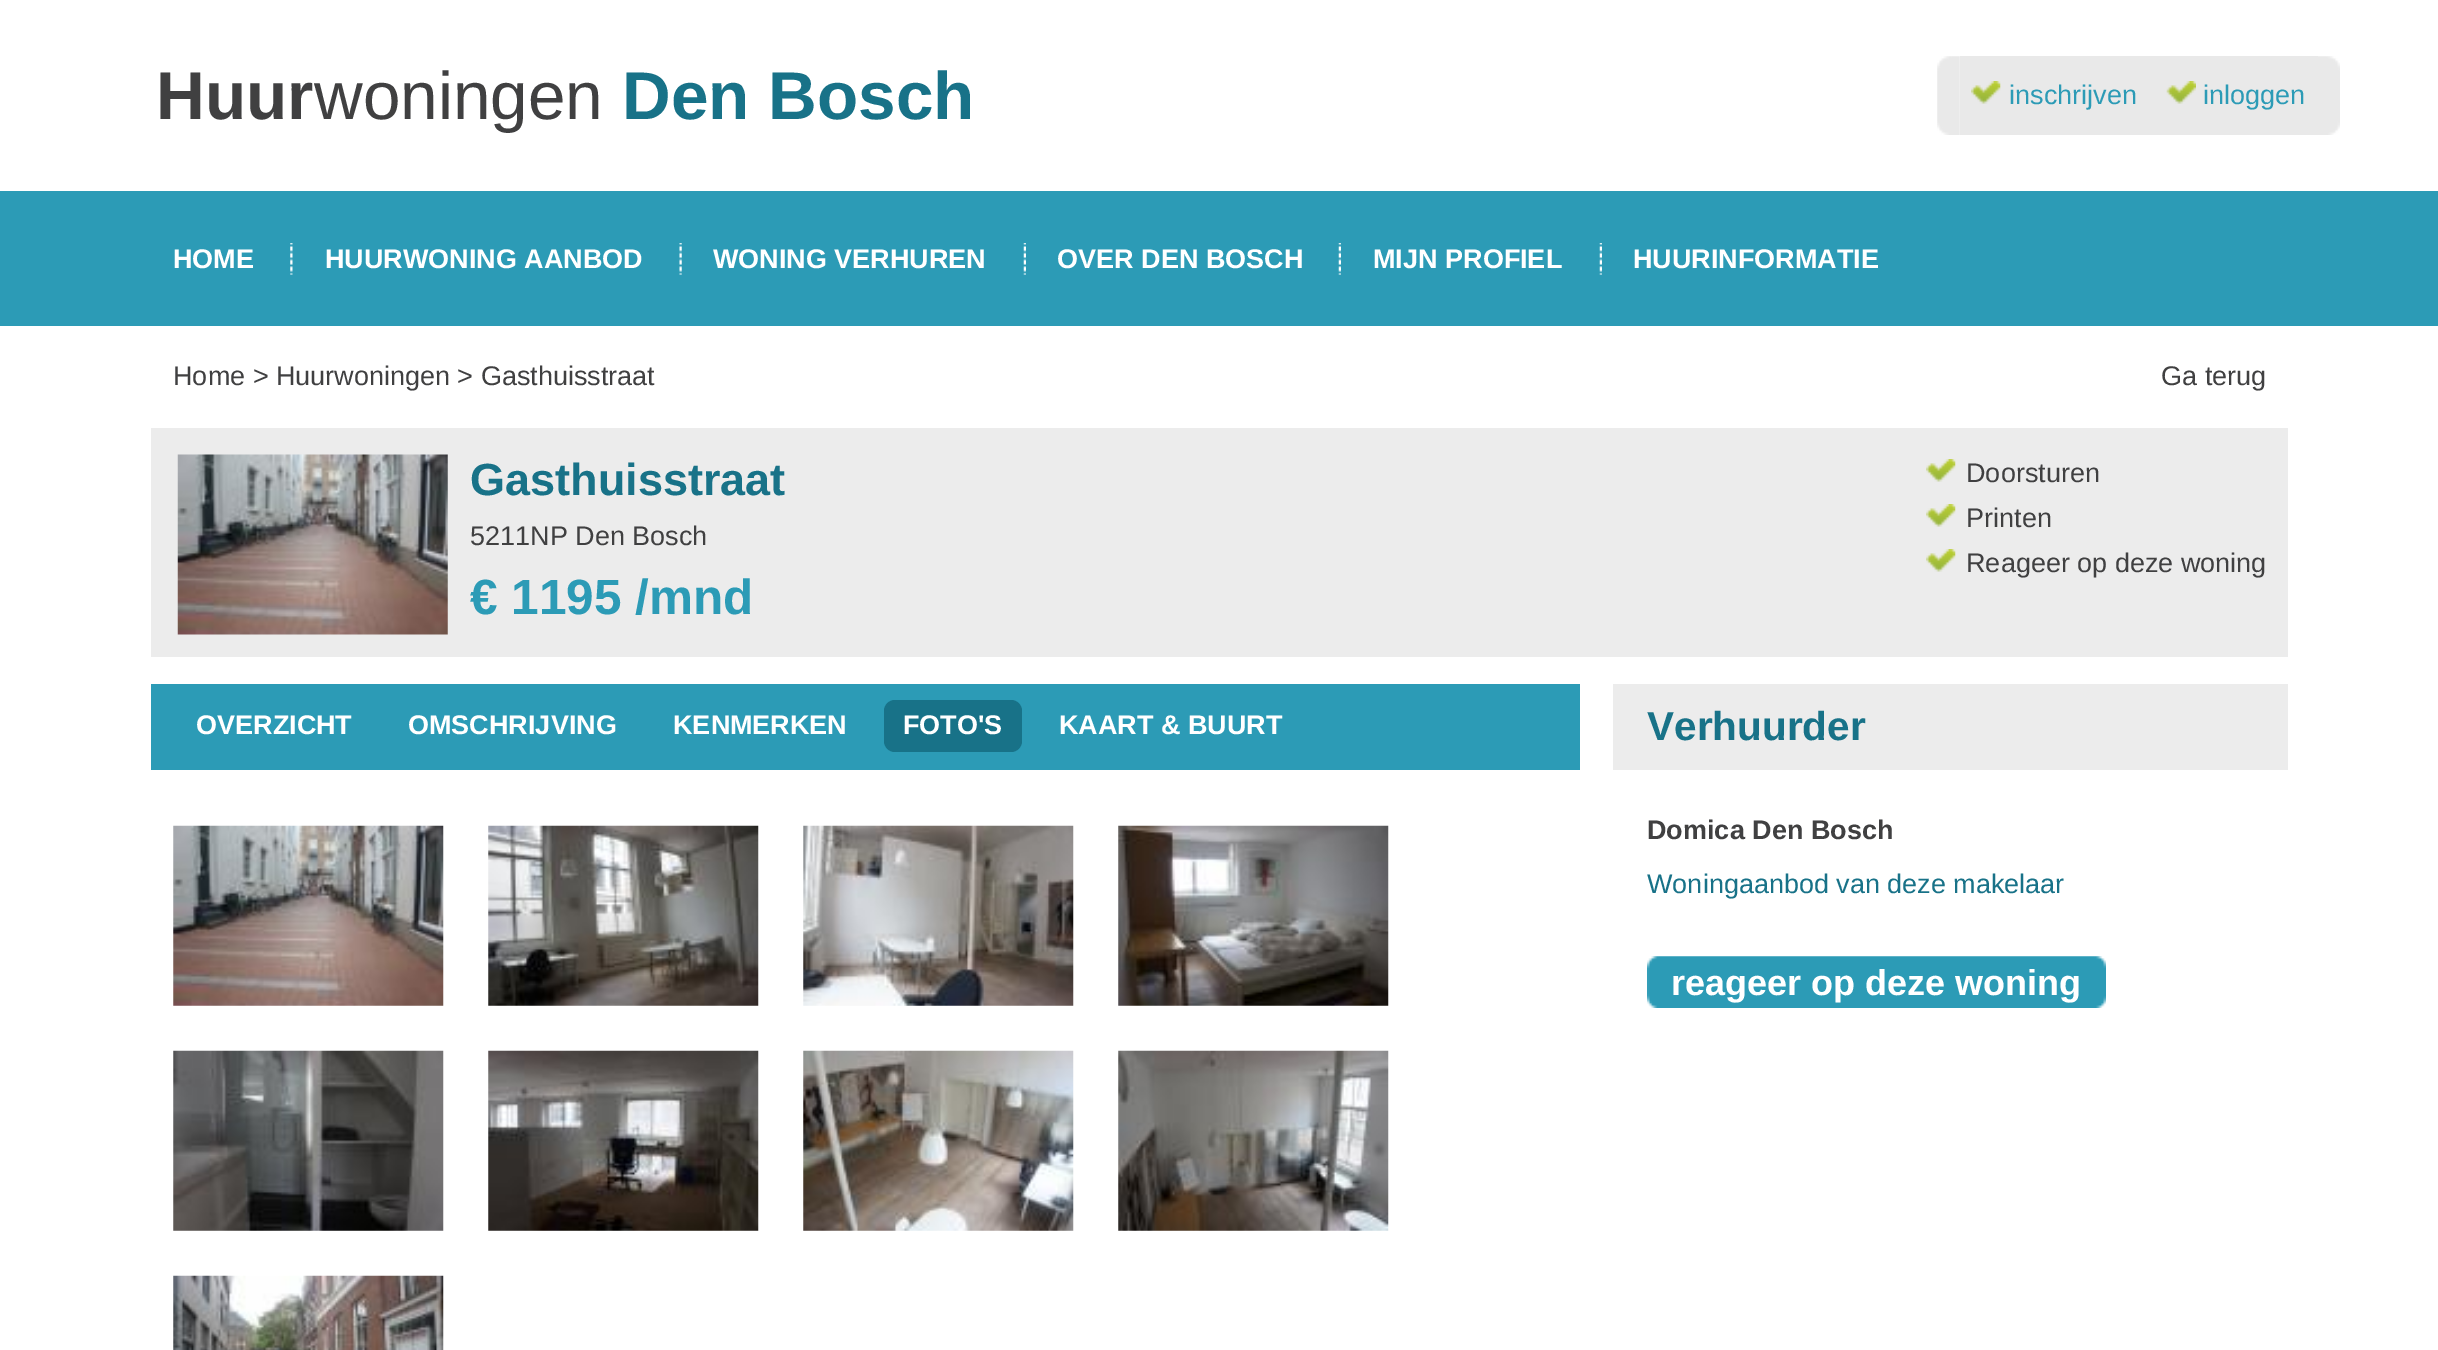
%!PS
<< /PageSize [2438 1350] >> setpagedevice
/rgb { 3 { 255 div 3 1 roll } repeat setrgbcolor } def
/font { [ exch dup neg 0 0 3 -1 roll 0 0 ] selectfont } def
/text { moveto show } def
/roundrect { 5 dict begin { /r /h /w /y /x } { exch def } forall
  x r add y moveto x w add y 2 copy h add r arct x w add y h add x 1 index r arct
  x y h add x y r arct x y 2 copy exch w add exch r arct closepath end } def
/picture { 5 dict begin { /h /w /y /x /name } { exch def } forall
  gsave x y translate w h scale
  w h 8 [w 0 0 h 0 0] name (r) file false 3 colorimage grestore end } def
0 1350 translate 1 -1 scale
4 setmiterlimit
255 255 255 rgb
0 0 2438 1350 rectfill
(img_01.rgb) 1937 56 23 79 picture
233 233 233 rgb
1960 56 358 79 rectfill
(img_02.rgb) 1971 81 30 23 picture
(img_03.rgb) 2166 81 30 23 picture
(img_04.rgb) 2318 56 22 79 picture
44 155 182 rgb
0 191 2438 135 rectfill
(img_05.rgb) 290 243 3 32 picture
(img_06.rgb) 679 243 3 32 picture
(img_07.rgb) 1023 243 3 32 picture
(img_07.rgb) 1338 243 3 32 picture
(img_07.rgb) 1599 243 3 32 picture
236 236 236 rgb
151 428 2137 229 rectfill
(img_08.rgb) 177 454 271 181 picture
(img_09.rgb) 1926 459 30 23 picture
(img_09.rgb) 1926 504 30 23 picture
(img_09.rgb) 1926 549 30 23 picture
44 155 182 rgb
151 684 1429 86 rectfill
24 114 136 rgb
884 700 138 52 11 roundrect fill
(img_10.rgb) 173 825 271 181 picture
(img_11.rgb) 488 825 271 181 picture
(img_12.rgb) 803 825 271 181 picture
(img_13.rgb) 1118 825 271 181 picture
(img_14.rgb) 173 1050 271 181 picture
(img_15.rgb) 488 1050 271 181 picture
(img_16.rgb) 803 1050 271 181 picture
(img_17.rgb) 1118 1050 271 181 picture
(img_18.rgb) 173 1275 271 75 picture
236 236 236 rgb
1613 684 675 86 rectfill
(img_19.rgb) 1647 956 459 52 picture
/LiberationSans-Bold 67.5 font
64 64 65 rgb
(Huur) 156 119 text
/LiberationSans-Regular 67.5 font
(woningen) 314 119 text
/LiberationSans-Bold 67.5 font
24 114 136 rgb
(Den Bosch) 622 119 text
/LiberationSans-Regular 27 font
44 155 182 rgb
(inschrijven) 2009 104 text
(inloggen) 2203 104 text
/LiberationSans-Bold 27 font
255 255 255 rgb
(HOME) 173 268 text
(HUURWONING AANBOD) 325 268 text
(WONING VERHUREN) 713 268 text
(OVER DEN BOSCH) 1057 268 text
(MIJN PROFIEL) 1373 268 text
(HUURINFORMATIE) 1633 268 text
/LiberationSans-Regular 27 font
64 64 65 rgb
(Home > Huurwoningen > Gasthuisstraat) 173 385 text
(Ga terug) 2161 385 text
/LiberationSans-Bold 45 font
24 114 136 rgb
(Gasthuisstraat) 470 495 text
/LiberationSans-Regular 27 font
64 64 65 rgb
(5211NP Den Bosch) 470 545 text
/LiberationSans-Bold 49.5 font
44 155 182 rgb
(€ 1195 /mnd) 470 614 text
/LiberationSans-Regular 27 font
64 64 65 rgb
(Doorsturen) 1966 482 text
(Printen) 1966 527 text
(Reageer op deze woning) 1966 572 text
/LiberationSans-Bold 27 font
255 255 255 rgb
(OVERZICHT) 196 734 text
(OMSCHRIJVING) 408 734 text
(KENMERKEN) 673 734 text
(FOTO'S) 903 734 text
(KAART & BUURT) 1059 734 text
/LiberationSans-Bold 40.5 font
24 114 136 rgb
(Verhuurder) 1647 740 text
/LiberationSans-Bold 27 font
64 64 65 rgb
(Domica Den Bosch) 1647 839 text
/LiberationSans-Regular 27 font
24 114 136 rgb
(Woningaanbod van deze makelaar) 1647 893 text
/LiberationSans-Bold 36 font
255 255 255 rgb
(reageer op deze woning) 1671 995 text
showpage
